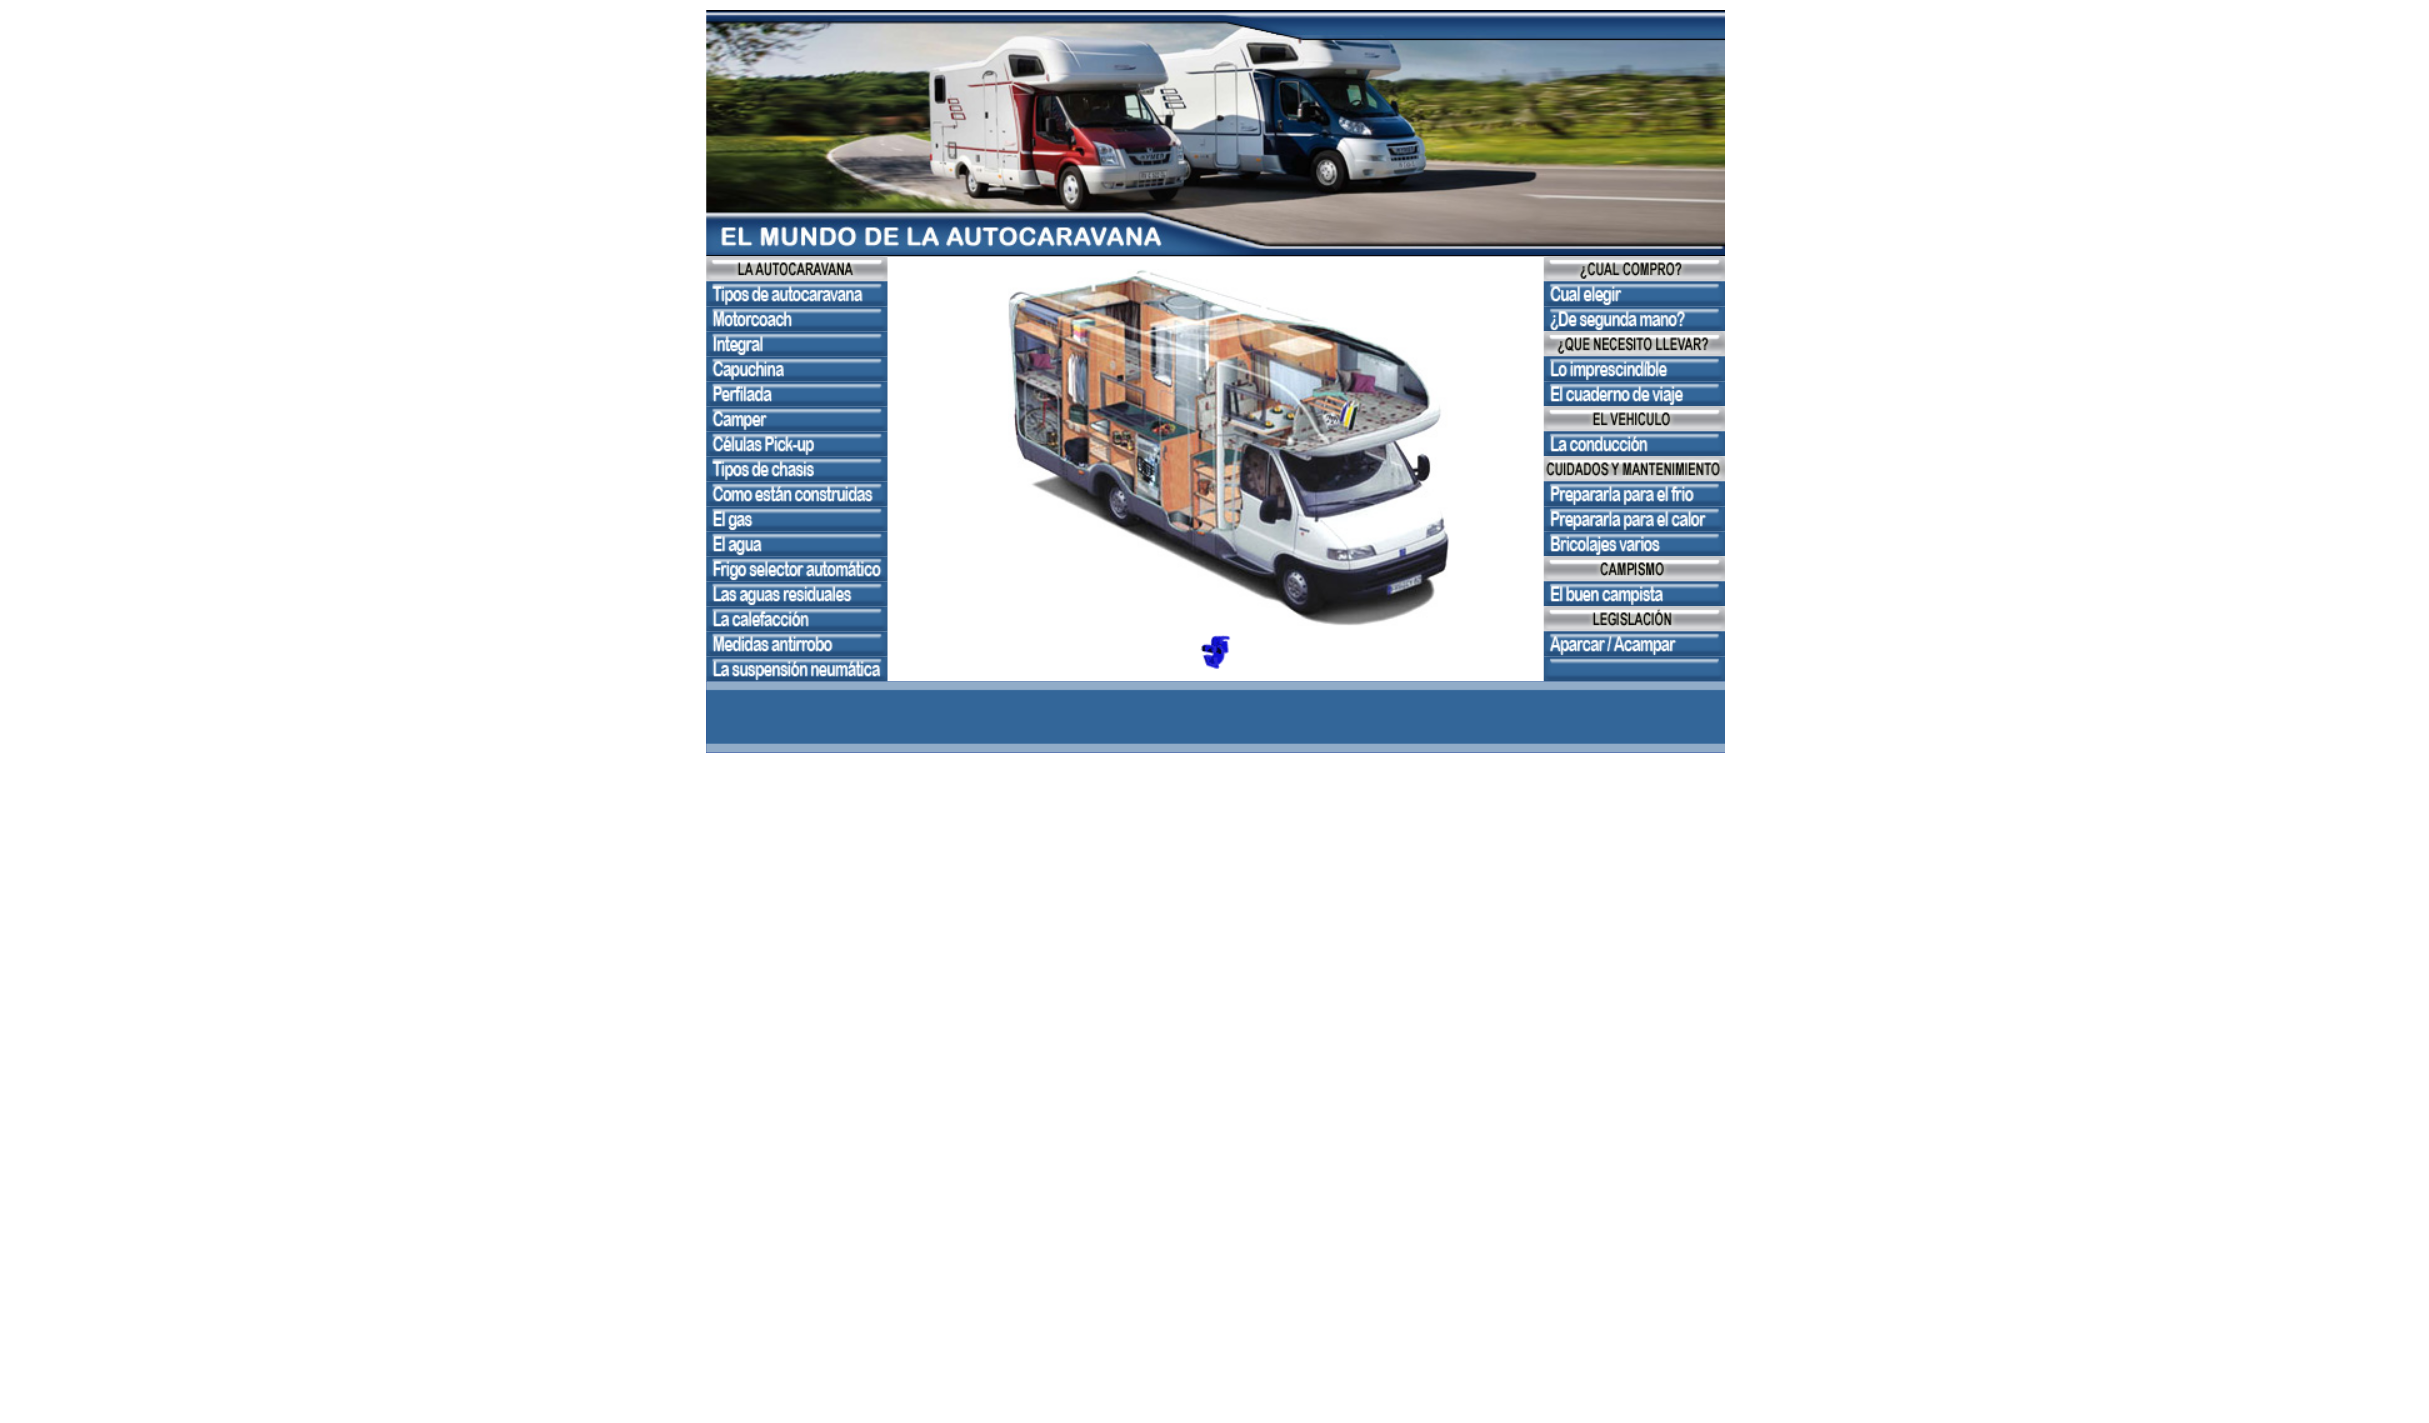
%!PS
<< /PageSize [2429 1423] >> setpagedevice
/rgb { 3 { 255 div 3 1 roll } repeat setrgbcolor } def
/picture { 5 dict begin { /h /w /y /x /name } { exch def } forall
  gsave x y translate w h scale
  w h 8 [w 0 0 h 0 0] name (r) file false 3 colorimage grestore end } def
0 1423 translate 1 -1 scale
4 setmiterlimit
255 255 255 rgb
0 0 2429 1423 rectfill
(img_01.rgb) 706 10 1019 247 picture
(img_02.rgb) 706 256 182 26 picture
(img_03.rgb) 706 281 182 26 picture
(img_04.rgb) 706 306 182 26 picture
(img_05.rgb) 706 331 182 26 picture
(img_06.rgb) 706 356 182 26 picture
(img_07.rgb) 706 381 182 26 picture
(img_08.rgb) 706 406 182 26 picture
(img_09.rgb) 706 431 182 26 picture
(img_10.rgb) 706 456 182 26 picture
(img_11.rgb) 706 481 182 26 picture
(img_12.rgb) 706 506 182 26 picture
(img_13.rgb) 706 531 182 26 picture
(img_14.rgb) 706 556 182 26 picture
(img_15.rgb) 706 581 182 26 picture
(img_16.rgb) 706 606 182 26 picture
(img_17.rgb) 706 631 182 26 picture
45 75 161 rgb
706 681 1019 72 rectfill
(img_38.rgb) 706 681 1019 72 picture
(img_18.rgb) 706 656 182 26 picture
(img_19.rgb) 1008 269 441 357 picture
(img_20.rgb) 1200 635 31 34 picture
(img_21.rgb) 1543 256 182 26 picture
(img_22.rgb) 1543 281 182 26 picture
(img_23.rgb) 1543 306 182 26 picture
(img_24.rgb) 1543 331 182 26 picture
(img_25.rgb) 1543 356 182 26 picture
(img_26.rgb) 1543 381 182 26 picture
(img_27.rgb) 1543 406 182 26 picture
(img_28.rgb) 1543 431 182 26 picture
(img_29.rgb) 1543 456 182 26 picture
(img_30.rgb) 1543 481 182 26 picture
(img_31.rgb) 1543 506 182 26 picture
(img_32.rgb) 1543 531 182 26 picture
(img_33.rgb) 1543 556 182 26 picture
(img_34.rgb) 1543 581 182 26 picture
(img_35.rgb) 1543 606 182 26 picture
(img_36.rgb) 1543 631 182 26 picture
(img_37.rgb) 1543 656 182 26 picture
showpage
